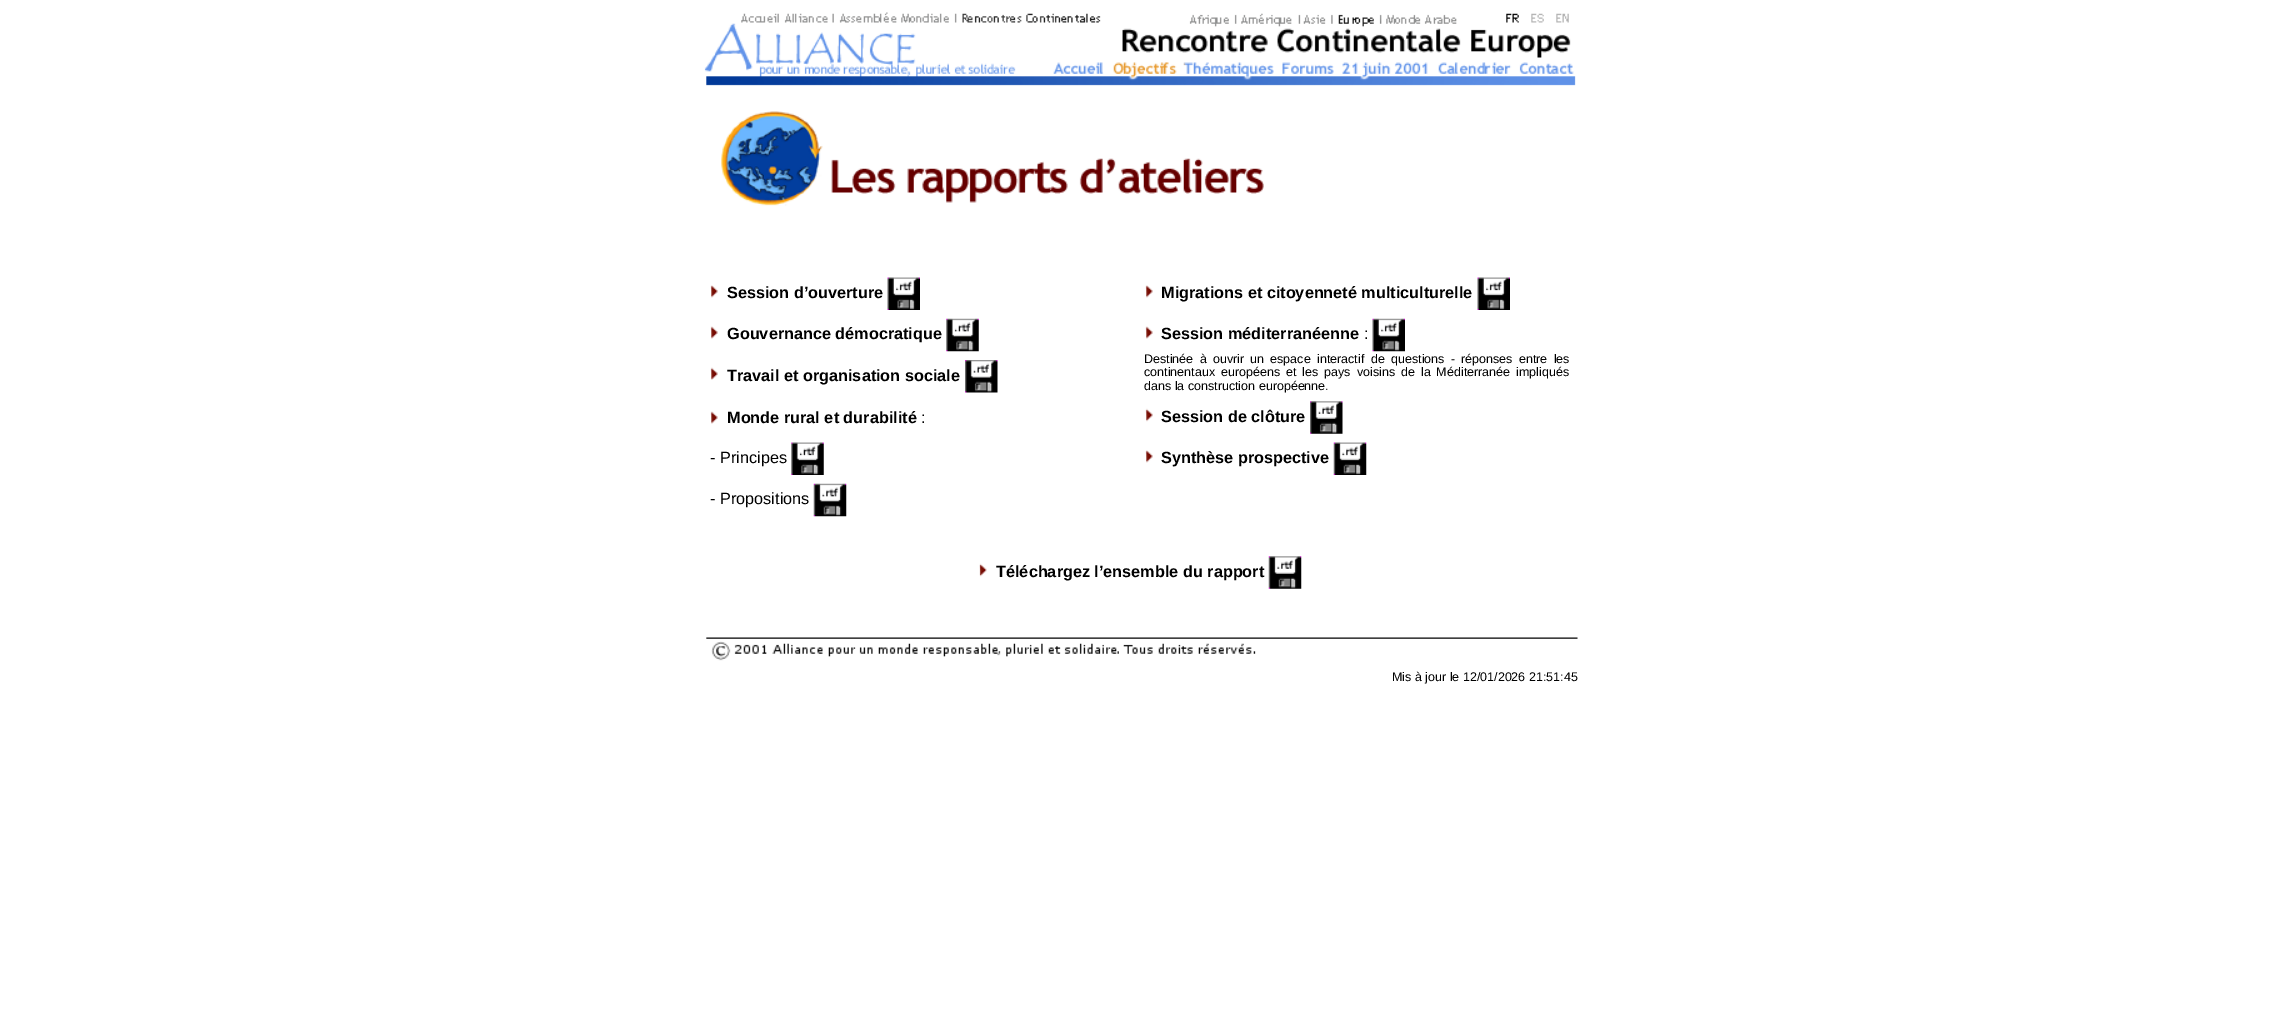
%!PS
<< /PageSize [2280 1023] >> setpagedevice
/rgb { 3 { 255 div 3 1 roll } repeat setrgbcolor } def
/font { [ exch dup neg 0 0 3 -1 roll 0 0 ] selectfont } def
/text { moveto show } def
/picture { 5 dict begin { /h /w /y /x /name } { exch def } forall
  gsave x y translate w h scale
  w h 8 [w 0 0 h 0 0] name (r) file false 3 colorimage grestore end } def
0 1023 translate 1 -1 scale
4 setmiterlimit
255 255 255 rgb
0 0 2280 1023 rectfill
(img_01.rgb) 704 12 872 74 picture
(img_02.rgb) 721 111 543 95 picture
(img_03.rgb) 710 285 8 13 picture
(img_04.rgb) 887 277 33 33 picture
(img_03.rgb) 1145 285 8 13 picture
(img_04.rgb) 1477 277 33 33 picture
(img_05.rgb) 710 326 8 13 picture
(img_06.rgb) 946 318 33 34 picture
(img_05.rgb) 1145 326 8 13 picture
(img_07.rgb) 1372 318 33 34 picture
(img_08.rgb) 710 367 8 13 picture
(img_09.rgb) 965 360 33 33 picture
(img_05.rgb) 710 411 8 13 picture
(img_10.rgb) 1145 408 8 14 picture
(img_11.rgb) 1310 401 33 33 picture
(img_12.rgb) 791 442 33 33 picture
(img_03.rgb) 1145 450 8 13 picture
(img_13.rgb) 1333 442 34 33 picture
(img_14.rgb) 813 483 34 34 picture
(img_15.rgb) 979 563 8 14 picture
(img_16.rgb) 1268 556 34 33 picture
(img_17.rgb) 706 637 872 24 picture
/LiberationSans-Bold 16.25 font
0 0 0 rgb
(Session d’ouverture) 727 298 text
(Migrations et citoyenneté multiculturelle) 1161 298 text
(Gouvernance démocratique) 727 339 text
(Session méditerranéenne) 1161 339 text
/LiberationSans-Regular 16.25 font
(:) 1364 339 text
/LiberationSans-Regular 12.5 font
1144 363 moveto 2.75 0 32 (Destinée à ouvrir un espace interactif) widthshow
1371 363 moveto 2.75 0 32 (de questions - réponses entre les) widthshow
1144 376 moveto 2.5 0 32 (continentaux européens) widthshow
1286 376 moveto 2.5 0 32 (et les pays voisins de la Méditerranée impliqués) widthshow
(dans la construction européenne.) 1144 390 text
/LiberationSans-Bold 16.25 font
(Travail et organisation sociale) 727 381 text
(Monde rural et durabilité) 727 423 text
/LiberationSans-Regular 16.25 font
(:) 921 423 text
/LiberationSans-Bold 16.25 font
(Session de clôture) 1161 422 text
/LiberationSans-Regular 16.25 font
(- Principes) 710 463 text
/LiberationSans-Bold 16.25 font
(Synthèse prospective) 1161 463 text
/LiberationSans-Regular 16.25 font
(- Propositions) 710 504 text
/LiberationSans-Bold 16.25 font
(Téléchargez l’ensemble du rapport) 996 577 text
/LiberationSans-Regular 12.5 font
(Mis à jour le 12/01/2026 21:51:45) 1392 681 text
showpage
